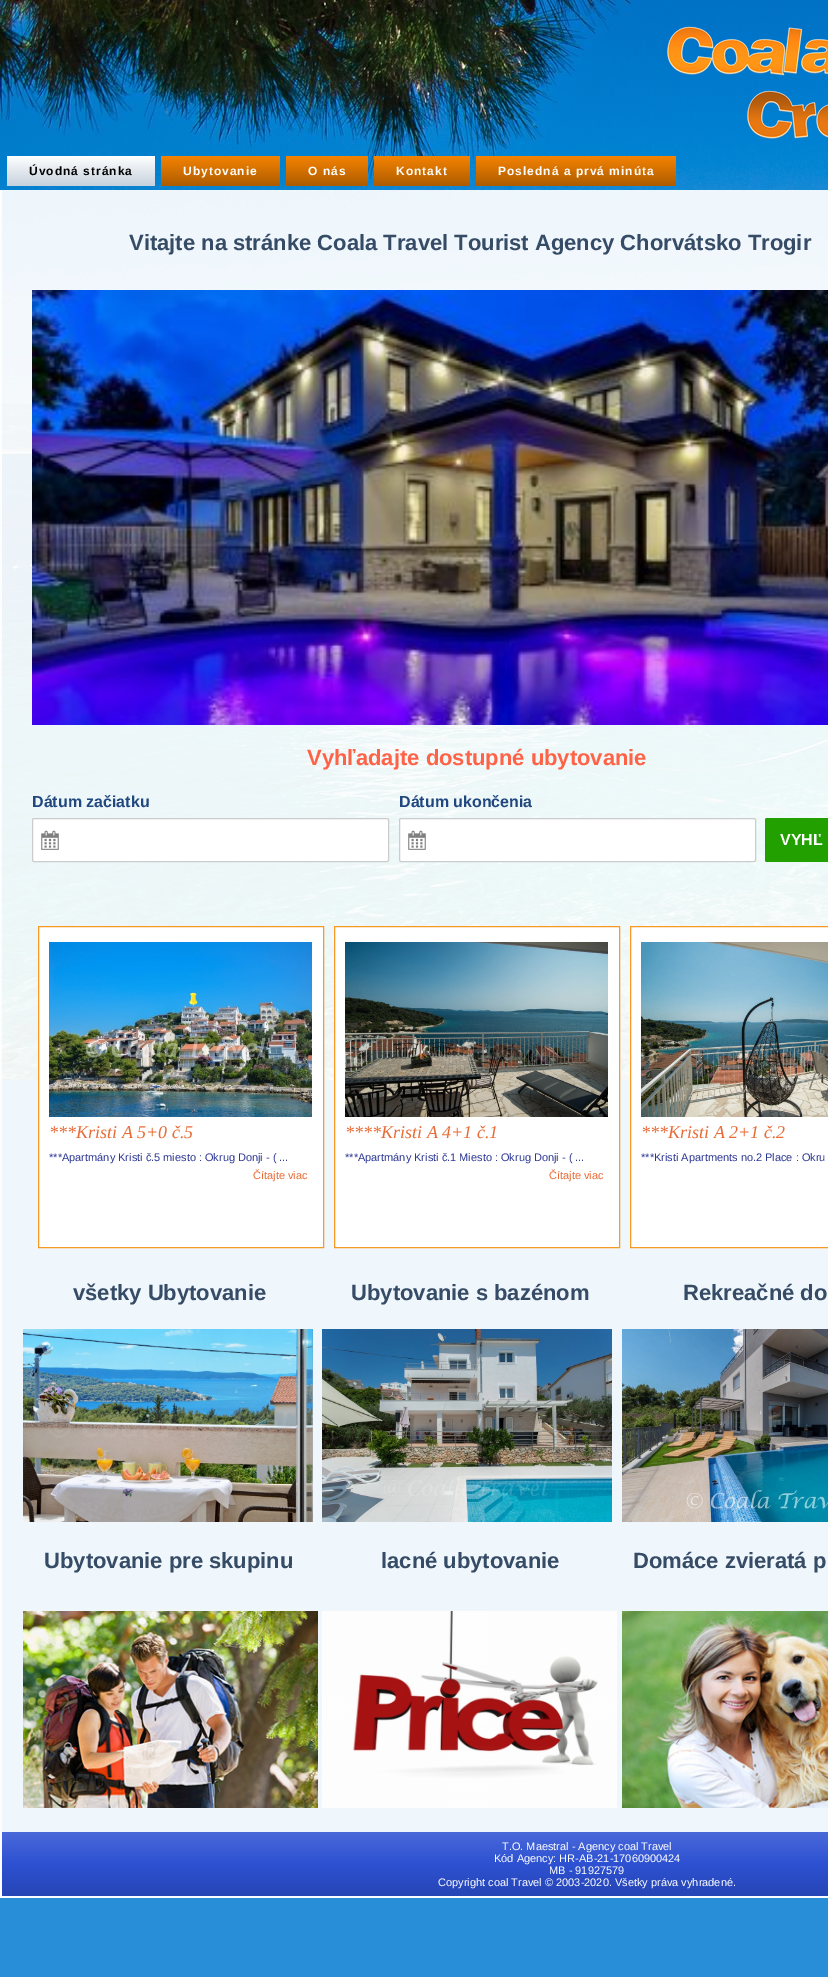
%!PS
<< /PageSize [828 1977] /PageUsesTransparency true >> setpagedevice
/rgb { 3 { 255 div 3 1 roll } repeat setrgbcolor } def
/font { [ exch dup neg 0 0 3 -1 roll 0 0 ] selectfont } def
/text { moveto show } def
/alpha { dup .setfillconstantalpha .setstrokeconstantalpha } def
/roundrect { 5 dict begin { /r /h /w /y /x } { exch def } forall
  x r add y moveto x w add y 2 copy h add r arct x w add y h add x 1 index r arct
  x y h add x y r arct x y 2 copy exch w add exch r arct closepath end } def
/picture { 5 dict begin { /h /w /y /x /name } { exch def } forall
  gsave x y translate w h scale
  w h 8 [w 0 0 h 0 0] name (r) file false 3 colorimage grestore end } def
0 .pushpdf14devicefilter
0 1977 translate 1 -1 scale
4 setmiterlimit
40 142 215 rgb
0 0 828 1977 rectfill
(img_01.rgb) 0 0 828 1080 picture
(img_02.rgb) 667 26 161 113 picture
gsave 7 156 148 30 3 roundrect clip newpath
<< /ShadingType 2 /ColorSpace /DeviceRGB /Coords [81 156 81 186] /Extend [true true] /Function << /FunctionType 2 /Domain [0 1] /C0 [1 1 1] /C1 [0.776 0.82 0.867] /N 1 >> >> shfill grestore
gsave 161 156 119 30 3 roundrect clip newpath
<< /ShadingType 2 /ColorSpace /DeviceRGB /Coords [221 156 221 186] /Extend [true true] /Function << /FunctionType 2 /Domain [0 1] /C0 [0.961 0.514 0] /C1 [0.678 0.361 0] /N 1 >> >> shfill grestore
gsave 286 156 82 30 3 roundrect clip newpath
<< /ShadingType 2 /ColorSpace /DeviceRGB /Coords [327 156 327 186] /Extend [true true] /Function << /FunctionType 2 /Domain [0 1] /C0 [0.961 0.514 0] /C1 [0.678 0.361 0] /N 1 >> >> shfill grestore
gsave 374 156 96 30 3 roundrect clip newpath
<< /ShadingType 2 /ColorSpace /DeviceRGB /Coords [422 156 422 186] /Extend [true true] /Function << /FunctionType 2 /Domain [0 1] /C0 [0.961 0.514 0] /C1 [0.678 0.361 0] /N 1 >> >> shfill grestore
gsave 476 156 200 30 3 roundrect clip newpath
<< /ShadingType 2 /ColorSpace /DeviceRGB /Coords [576 156 576 186] /Extend [true true] /Function << /FunctionType 2 /Domain [0 1] /C0 [0.961 0.514 0] /C1 [0.678 0.361 0] /N 1 >> >> shfill grestore
0.93 alpha
255 255 255 rgb
0 190 828 1708 rectfill
1 alpha
252 253 254 rgb
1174 1898 moveto -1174 0 rlineto 2 -2 rlineto 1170 0 rlineto closepath fill
0.8 alpha
255 255 255 rgb
0 1898 moveto 0 -1708 rlineto 2 0 rlineto 0 1706 rlineto closepath fill
1 alpha
(img_03.rgb) 32 290 796 435 picture
32 818 357 44 2 roundrect fill
(img_04.rgb) 41 830 18 20 picture
204 204 204 rgb
32.5 818.5 356 43 1.5 roundrect stroke
255 255 255 rgb
399 818 357 44 2 roundrect fill
(img_04.rgb) 408 830 18 20 picture
204 204 204 rgb
399.5 818.5 356 43 1.5 roundrect stroke
34 160 0 rgb
765 818 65 44 2 roundrect fill
255 255 255 rgb
38.5 926.5 moveto 285 0 rlineto 0 321 rlineto -285 0 rlineto closepath gsave fill grestore
247 153 34 rgb
stroke
(img_05.rgb) 49 942 263 175 picture
255 255 255 rgb
334.5 926.5 moveto 285 0 rlineto 0 321 rlineto -285 0 rlineto closepath gsave fill grestore
247 153 34 rgb
stroke
(img_06.rgb) 345 942 263 175 picture
255 255 255 rgb
630.5 926.5 moveto 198 0 rlineto 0 321 rlineto -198 0 rlineto closepath gsave fill grestore
247 153 34 rgb
stroke
(img_07.rgb) 641 942 187 175 picture
(img_08.rgb) 23 1329 290 193 picture
(img_09.rgb) 322 1329 290 193 picture
(img_10.rgb) 622 1329 206 193 picture
(img_11.rgb) 23 1611 295 197 picture
(img_12.rgb) 322 1611 295 197 picture
(img_13.rgb) 622 1611 206 197 picture
gsave 2 1832 moveto 826 0 rlineto 0 64 rlineto -826 0 rlineto closepath clip newpath
<< /ShadingType 2 /ColorSpace /DeviceRGB /Coords [587 1832 587 1896] /Extend [true true] /Function << /FunctionType 3 /Domain [0 1] /Functions [<< /FunctionType 2 /Domain [0 1] /C0 [0.29 0.412 0.851] /C1 [0.176 0.318 0.824] /N 1 >> << /FunctionType 2 /Domain [0 1] /C0 [0.176 0.318 0.824] /C1 [0.149 0.271 0.71] /N 1 >>] /Bounds [0.5] /Encode [0 1 0 1] >> >> shfill grestore
/LiberationSans-Bold 12 font
0 0 0 rgb
29 175 moveto 1 0 (Úvodná stránka) ashow
255 255 255 rgb
183 175 moveto 1 0 (Ubytovanie) ashow
308 175 moveto 1 0 (O nás) ashow
396 175 moveto 1 0 (Kontakt) ashow
498 175 moveto 1 0 (Posledná a prvá minúta) ashow
/LiberationSans-Bold 22 font
53 75 102 rgb
(Vitajte na stránke Coala Travel Tourist Agency Chorvátsko Trogir) 129 250 text
255 99 71 rgb
(Vyhľadajte dostupné ubytovanie) 307 765 text
/LiberationSans-Bold 16 font
32 71 126 rgb
(Dátum začiatku) 32 807 text
(Dátum ukončenia) 399 807 text
255 255 255 rgb
(VYHĽ) 780 845 text
/LiberationSerif-Italic 18 font
232 106 53 rgb
(***Kristi A 5+0 č.5) 49 1138 text
/LiberationSans-Regular 11 font
44 54 147 rgb
(***Apartmány Kristi č.5 miesto : Okrug Donji - \( ...) 49 1161 text
232 106 53 rgb
(Čítajte viac) 253 1179 text
/LiberationSerif-Italic 18 font
(****Kristi A 4+1 č.1) 345 1138 text
/LiberationSans-Regular 11 font
44 54 147 rgb
(***Apartmány Kristi č.1 Miesto : Okrug Donji - \( ...) 345 1161 text
232 106 53 rgb
(Čítajte viac) 549 1179 text
/LiberationSerif-Italic 18 font
(***Kristi A 2+1 č.2) 641 1138 text
/LiberationSans-Regular 11 font
44 54 147 rgb
(***Kristi Apartments no.2 Place : Okru) 641 1161 text
/LiberationSans-Bold 22 font
53 75 102 rgb
(všetky Ubytovanie) 73 1300 text
(Ubytovanie s bazénom) 351 1300 text
(Rekreačné do) 683 1300 text
(Ubytovanie pre skupinu) 44 1568 text
(lacné ubytovanie) 381 1568 text
(Domáce zvieratá p) 633 1568 text
/LiberationSans-Regular 11 font
255 255 255 rgb
(T.O. Maestral - Agency coal Travel) 502 1850 text
(Kód Agency: HR-AB-21-17060900424) 494 1862 text
(MB - 91927579) 549 1874 text
(Copyright coal Travel © 2003-2020. Všetky práva vyhradené.) 438 1886 text
.poppdf14devicefilter showpage
